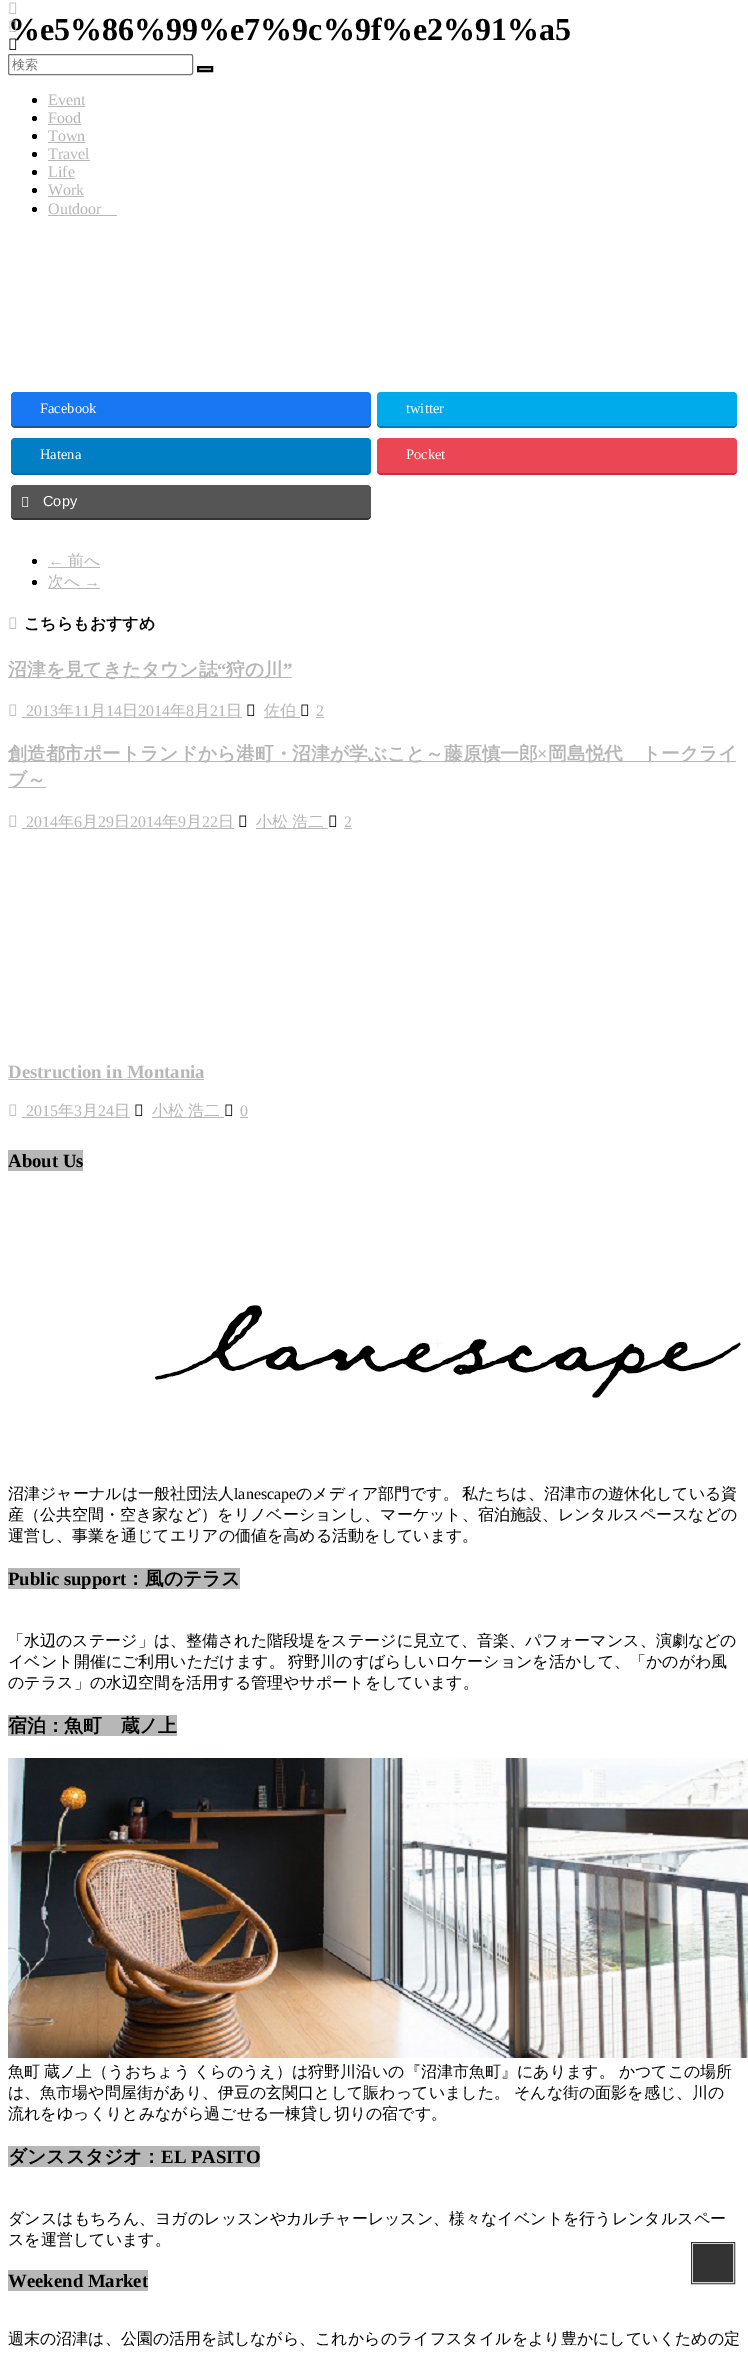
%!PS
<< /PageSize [748 2353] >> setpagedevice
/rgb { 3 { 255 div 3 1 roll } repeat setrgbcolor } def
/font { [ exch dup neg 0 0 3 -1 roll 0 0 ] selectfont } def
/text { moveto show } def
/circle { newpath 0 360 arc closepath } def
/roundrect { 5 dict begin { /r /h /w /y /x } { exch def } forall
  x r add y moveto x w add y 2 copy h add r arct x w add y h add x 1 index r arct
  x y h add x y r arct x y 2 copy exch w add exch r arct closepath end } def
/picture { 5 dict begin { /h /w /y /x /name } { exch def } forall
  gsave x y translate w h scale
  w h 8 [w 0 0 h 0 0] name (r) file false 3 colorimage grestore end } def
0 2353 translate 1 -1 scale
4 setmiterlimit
255 255 255 rgb
0 0 748 2353 rectfill
52 78 132 rgb
11 422 moveto 0 2 rlineto 0 2 2 4 4 4 rcurveto 352 0 rlineto 2 0 4 -2 4 -4 rcurveto 0 -2 rlineto 0 2 -2 4 -4 4 rcurveto -352 0 rlineto -2 0 -4 -2 -4 -4 rcurveto closepath fill
24 119 242 rgb
11 392 360 34 4 roundrect fill
0 126 170 rgb
377 422 moveto 0 2 rlineto 0 2 2 4 4 4 rcurveto 352 0 rlineto 2 0 4 -2 4 -4 rcurveto 0 -2 rlineto 0 2 -2 4 -4 4 rcurveto -352 0 rlineto -2 0 -4 -2 -4 -4 rcurveto closepath fill
0 171 236 rgb
377 392 360 34 4 roundrect fill
0 103 159 rgb
11 469 moveto 0 2 rlineto 0 2 2 4 4 4 rcurveto 352 0 rlineto 2 0 4 -2 4 -4 rcurveto 0 -2 rlineto 0 2 -2 4 -4 4 rcurveto -352 0 rlineto -2 0 -4 -2 -4 -4 rcurveto closepath fill
0 127 197 rgb
11 438 360 35 4 roundrect fill
193 48 60 rgb
377 469 moveto 0 2 rlineto 0 2 2 4 4 4 rcurveto 352 0 rlineto 2 0 4 -2 4 -4 rcurveto 0 -2 rlineto 0 2 -2 4 -4 4 rcurveto -352 0 rlineto -2 0 -4 -2 -4 -4 rcurveto closepath fill
234 70 84 rgb
377 438 360 35 4 roundrect fill
51 51 51 rgb
11 514 moveto 0 2 rlineto 0 2 2 4 4 4 rcurveto 352 0 rlineto 2 0 4 -2 4 -4 rcurveto 0 -2 rlineto 0 2 -2 4 -4 4 rcurveto -352 0 rlineto -2 0 -4 -2 -4 -4 rcurveto closepath fill
85 85 85 rgb
11 485 360 33 4 roundrect fill
(img_01.rgb) 22 497 7 10 picture
0 0 0 rgb
34.5 561.5 2.5 circle fill
183 183 183 rgb
48 567 52 1 rectfill
0 0 0 rgb
34.5 582.5 2.5 circle fill
183 183 183 rgb
48 588 52 1 rectfill
(img_02.rgb) 9 617 8 12 picture
8 677 284 1 rectfill
(img_02.rgb) 9 704 8 12 picture
22 717 220 1 rectfill
(img_03.rgb) 247 704 8 12 picture
264 717 36 1 rectfill
(img_03.rgb) 301 704 8 12 picture
316 717 8 1 rectfill
8 761 728 1 rectfill
8 787 38 1 rectfill
(img_02.rgb) 9 815 8 12 picture
22 828 212 1 rectfill
(img_03.rgb) 239 815 8 12 picture
256 828 72 1 rectfill
(img_03.rgb) 329 815 8 12 picture
344 828 8 1 rectfill
8 1079 196 1 rectfill
(img_02.rgb) 9 1104 8 12 picture
22 1117 108 1 rectfill
(img_03.rgb) 135 1104 8 12 picture
152 1117 72 1 rectfill
(img_03.rgb) 225 1104 8 12 picture
240 1117 8 1 rectfill
8 1150 75 21 rectfill
(img_04.rgb) 155 1305 586 93 picture
8 1568 232 21 rectfill
8 1715 169 21 rectfill
(img_05.rgb) 8 1758 740 300 picture
8 2146 252 21 rectfill
8 2270 140 21 rectfill
(img_02.rgb) 9 2 8 12 picture
118 118 118 rgb
8.5 54.5 184 20 1.5 roundrect stroke
183 183 183 rgb
198 67 moveto 14 0 rlineto 0 4 rlineto -14 0 rlineto closepath gsave fill grestore
0 0 0 rgb
2 setlinewidth
stroke
34.5 100.5 2.5 circle fill
183 183 183 rgb
48 106 37 1 rectfill
0 0 0 rgb
34.5 118.5 2.5 circle fill
183 183 183 rgb
48 124 33 1 rectfill
0 0 0 rgb
34.5 136.5 2.5 circle fill
183 183 183 rgb
48 142 37 1 rectfill
0 0 0 rgb
34.5 154.5 2.5 circle fill
183 183 183 rgb
48 160 42 1 rectfill
0 0 0 rgb
34.5 172.5 2.5 circle fill
183 183 183 rgb
48 178 27 1 rectfill
0 0 0 rgb
34.5 190.5 2.5 circle fill
183 183 183 rgb
48 196 36 1 rectfill
0 0 0 rgb
34.5 209.5 2.5 circle fill
183 183 183 rgb
48 215 69 1 rectfill
51 51 51 rgb
692 2243 42 40 rectstroke
214 214 214 rgb
1 setlinewidth
692.5 2243.5 41 39 rectstroke
51 51 51 rgb
693 2244 40 38 rectfill
/LiberationSerif-Bold 32 font
0 0 0 rgb
(%e5%86%99%e7%9c%9f%e2%91%a5) 8 40 text
/LiberationSerif-Regular 14.5 font
255 255 255 rgb
(Facebook) 40 413 text
(twitter) 406 413 text
(Hatena) 40 459 text
(Pocket) 406 459 text
/LiberationSans-Regular 14.5 font
(Copy) 43 506 text
/LiberationSerif-Regular 16 font
183 183 183 rgb
(←) 48 566 text
/WenQuanYiZenHei-Medium 16 font
(前へ) 68 566 text
(次へ) 48 587 text
/LiberationSerif-Regular 16 font
(→) 84 587 text
/WenQuanYiZenHei-Bold 16 font
0 0 0 rgb
(こちらもおすすめ) 24 629 text
/WenQuanYiZenHei-Bold 18.75 font
183 183 183 rgb
(沼津を見てきたタウン誌) 8 676 text
/LiberationSerif-Bold 18.75 font
(“) 217 676 text
/WenQuanYiZenHei-Bold 18.75 font
(狩の川) 226 676 text
/LiberationSerif-Bold 18.75 font
(”) 283 676 text
/LiberationSerif-Regular 16 font
(2013) 26 716 text
/WenQuanYiZenHei-Medium 16 font
(年) 58 716 text
/LiberationSerif-Regular 16 font
(11) 74 716 text
/WenQuanYiZenHei-Medium 16 font
(月) 90 716 text
/LiberationSerif-Regular 16 font
(14) 106 716 text
/WenQuanYiZenHei-Medium 16 font
(日) 122 716 text
/LiberationSerif-Regular 16 font
(2014) 138 716 text
/WenQuanYiZenHei-Medium 16 font
(年) 170 716 text
/LiberationSerif-Regular 16 font
(8) 186 716 text
/WenQuanYiZenHei-Medium 16 font
(月) 194 716 text
/LiberationSerif-Regular 16 font
(21) 210 716 text
/WenQuanYiZenHei-Medium 16 font
(日) 226 716 text
(佐伯) 264 716 text
/LiberationSerif-Regular 16 font
(2) 316 716 text
/WenQuanYiZenHei-Bold 18.75 font
(創造都市ポートランドから港町・沼津が学ぶこと～藤原慎一郎) 8 760 text
/LiberationSerif-Bold 18.75 font
(×) 537 760 text
/WenQuanYiZenHei-Bold 18.75 font
(岡島悦代　トークライ) 548 760 text
(ブ～) 8 786 text
/LiberationSerif-Regular 16 font
(2014) 26 827 text
/WenQuanYiZenHei-Medium 16 font
(年) 58 827 text
/LiberationSerif-Regular 16 font
(6) 74 827 text
/WenQuanYiZenHei-Medium 16 font
(月) 82 827 text
/LiberationSerif-Regular 16 font
(29) 98 827 text
/WenQuanYiZenHei-Medium 16 font
(日) 114 827 text
/LiberationSerif-Regular 16 font
(2014) 130 827 text
/WenQuanYiZenHei-Medium 16 font
(年) 162 827 text
/LiberationSerif-Regular 16 font
(9) 178 827 text
/WenQuanYiZenHei-Medium 16 font
(月) 186 827 text
/LiberationSerif-Regular 16 font
(22) 202 827 text
/WenQuanYiZenHei-Medium 16 font
(日) 218 827 text
256 827 moveto -1 0 32 (小松 浩二) widthshow
/LiberationSerif-Regular 16 font
(2) 344 827 text
/LiberationSerif-Bold 18.75 font
(Destruction in Montania) 8 1078 text
/LiberationSerif-Regular 16 font
(2015) 26 1116 text
/WenQuanYiZenHei-Medium 16 font
(年) 58 1116 text
/LiberationSerif-Regular 16 font
(3) 74 1116 text
/WenQuanYiZenHei-Medium 16 font
(月) 82 1116 text
/LiberationSerif-Regular 16 font
(24) 98 1116 text
/WenQuanYiZenHei-Medium 16 font
(日) 114 1116 text
152 1116 moveto -1 0 32 (小松 浩二) widthshow
/LiberationSerif-Regular 16 font
(0) 240 1116 text
/LiberationSerif-Bold 18.75 font
0 0 0 rgb
(About Us) 8 1167 text
/WenQuanYiZenHei-Medium 16 font
(沼津ジャーナルは一般社団法人) 8 1499 text
/LiberationSerif-Regular 16 font
(lanescape) 234 1499 text
/WenQuanYiZenHei-Medium 16 font
296 1499 moveto -1 0 32 (のメディア部門です。 私たちは、沼津市の遊休化している資) widthshow
(産（公共空間・空き家など）をリノベーションし、マーケット、宿泊施設、レンタルスペースなどの) 8 1520 text
(運営し、事業を通じてエリアの価値を高める活動をしています。) 8 1541 text
/LiberationSerif-Bold 18.75 font
(Public support) 8 1585 text
/WenQuanYiZenHei-Bold 18.75 font
(：風のテラス) 126 1585 text
/WenQuanYiZenHei-Medium 16 font
(「水辺のステージ」は、整備された階段堤をステージに見立て、音楽、パフォーマンス、演劇などの) 8 1646 text
8 1667 moveto -1 0 32 (イベント開催にご利用いただけます。 狩野川のすばらしいロケーションを活かして、「かのがわ風) widthshow
(のテラス」の水辺空間を活用する管理やサポートをしています。) 8 1688 text
/WenQuanYiZenHei-Bold 18.75 font
(宿泊：魚町　蔵ノ上) 8 1732 text
/WenQuanYiZenHei-Medium 16 font
8 2077 moveto -1 0 32 (魚町 蔵ノ上（うおちょう くらのうえ）は狩野川沿いの『沼津市魚町』にあります。 かつてこの場所) widthshow
8 2098 moveto -1 0 32 (は、魚市場や問屋街があり、伊豆の玄関口として賑わっていました。 そんな街の面影を感じ、川の) widthshow
(流れをゆっくりとみながら過ごせる一棟貸し切りの宿です。) 8 2119 text
/WenQuanYiZenHei-Bold 18.75 font
(ダンススタジオ：) 8 2163 text
/LiberationSerif-Bold 18.75 font
(EL PASITO) 161 2163 text
/WenQuanYiZenHei-Medium 16 font
(ダンスはもちろん、ヨガのレッスンやカルチャーレッスン、様々なイベントを行うレンタルスペー) 8 2224 text
(スを運営しています。) 8 2245 text
/LiberationSerif-Bold 18.75 font
(Weekend Market) 8 2287 text
/WenQuanYiZenHei-Medium 16 font
(週末の沼津は、公園の活用を試しながら、これからのライフスタイルをより豊かにしていくための定) 8 2344 text
(img_06.rgb) 9 20 8 12 picture
(img_07.rgb) 9 38 8 12 picture
/WenQuanYiZenHei-Medium 13 font
117 117 117 rgb
(検索) 12 69 text
/LiberationSerif-Regular 16 font
183 183 183 rgb
(Event) 48 105 text
(Food) 48 123 text
(Town) 48 141 text
(Travel) 48 159 text
(Life) 48 177 text
(Work) 48 195 text
(Outdoor) 48 214 text
showpage
